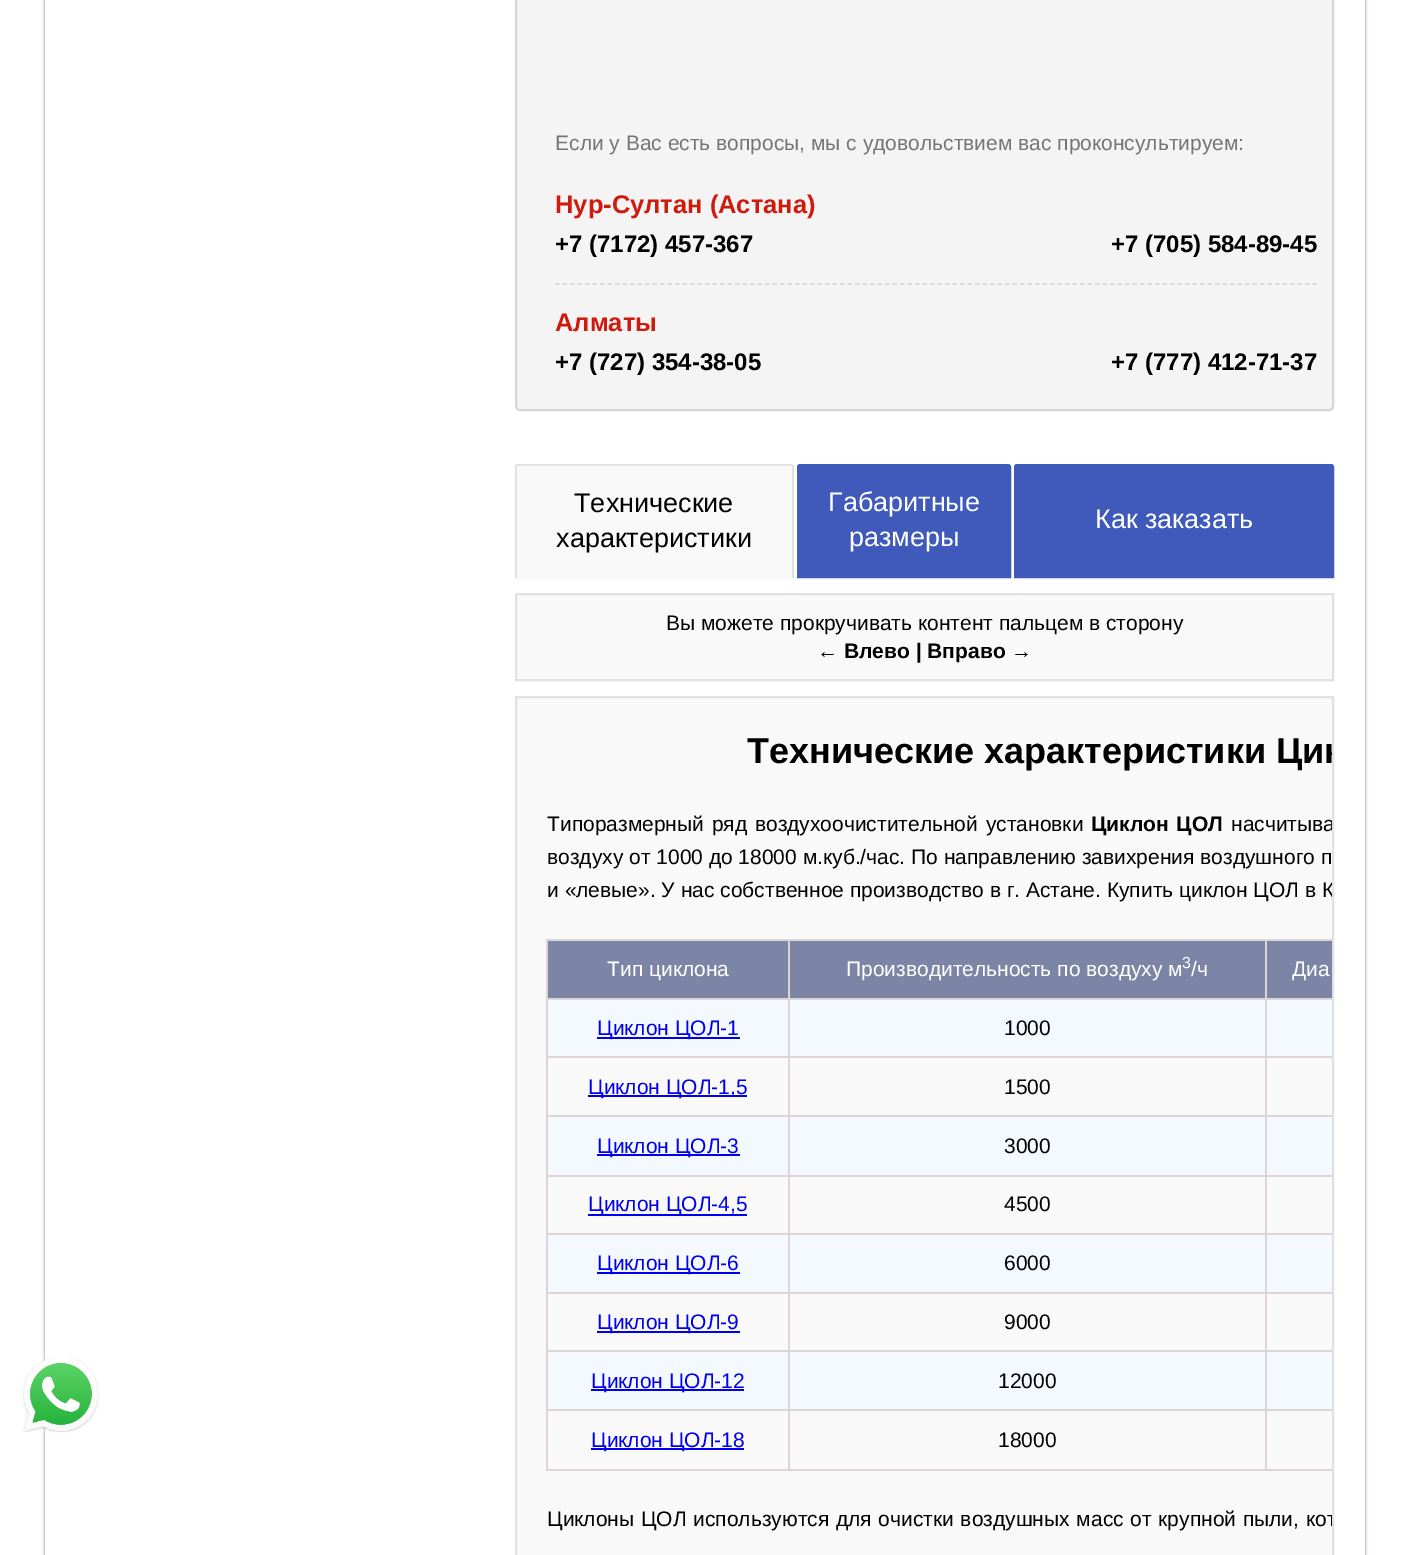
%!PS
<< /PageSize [1410 1555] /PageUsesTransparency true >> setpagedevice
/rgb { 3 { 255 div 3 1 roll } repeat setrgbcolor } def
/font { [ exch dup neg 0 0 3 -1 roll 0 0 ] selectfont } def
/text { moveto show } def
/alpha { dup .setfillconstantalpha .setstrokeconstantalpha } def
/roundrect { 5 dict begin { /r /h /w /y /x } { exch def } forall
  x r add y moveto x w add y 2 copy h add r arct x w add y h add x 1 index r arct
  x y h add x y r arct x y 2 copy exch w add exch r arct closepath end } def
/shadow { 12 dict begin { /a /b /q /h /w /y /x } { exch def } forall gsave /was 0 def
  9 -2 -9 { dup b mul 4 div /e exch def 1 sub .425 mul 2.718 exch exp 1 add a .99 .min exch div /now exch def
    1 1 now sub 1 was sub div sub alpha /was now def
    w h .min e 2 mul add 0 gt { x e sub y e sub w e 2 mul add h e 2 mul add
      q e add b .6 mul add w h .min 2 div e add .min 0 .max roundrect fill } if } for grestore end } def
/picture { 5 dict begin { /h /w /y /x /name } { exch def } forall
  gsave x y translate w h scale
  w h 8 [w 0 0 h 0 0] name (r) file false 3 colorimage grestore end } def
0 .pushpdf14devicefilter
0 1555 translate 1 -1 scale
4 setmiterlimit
255 255 255 rgb
0 0 1410 1555 rectfill
gsave
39 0 moveto 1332 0 rlineto 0 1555 rlineto -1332 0 rlineto closepath 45 -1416 moveto 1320 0 rlineto 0 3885 rlineto -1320 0 rlineto closepath eoclip newpath
0 0 0 rgb
45 -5 1320 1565 0 1.5 0.47 shadow
grestore
(img_01.rgb) 23 1357 76 75 picture
244 244 244 rgb
515 -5 819 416 5 roundrect fill
0.53 alpha
186 186 186 rgb
2 setlinewidth
516 -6 817 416 4 roundrect stroke
1 alpha
215 215 215 rgb
1.5 setlinewidth
[4.5 3] 0 setdash
555 284 moveto 762 0 rlineto stroke
249 249 249 rgb
518 464 moveto 273 0 rlineto 1.5 0 3 1.5 3 3 rcurveto 0 111 rlineto -279 0 rlineto 0 -111 rlineto 0 -1.5 1.5 -3 3 -3 rcurveto closepath fill
225 225 225 rgb
516 464 276 2 rectfill
792 465 2 113 rectfill
515 465 2 113 rectfill
249 249 249 rgb
516 578 276 3 rectfill
64 90 187 rgb
800 465 moveto 208 0 rlineto 1 0 2 1 2 2 rcurveto 0 110 rlineto -212 0 rlineto 0 -110 rlineto 0 -1 1 -2 2 -2 rcurveto closepath gsave fill grestore
2 setlinewidth
[] 0 setdash
stroke
1017 465 moveto 314 0 rlineto 1 0 2 1 2 2 rcurveto 0 110 rlineto -318 0 rlineto 0 -110 rlineto 0 -1 1 -2 2 -2 rcurveto closepath gsave fill grestore
stroke
249 249 249 rgb
516 594 moveto 817 0 rlineto 0 86 rlineto -817 0 rlineto closepath gsave fill grestore
225 225 225 rgb
stroke
249 249 249 rgb
516 697 moveto 817 0 rlineto 0 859 rlineto -817 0 rlineto closepath gsave fill grestore
225 225 225 rgb
stroke
221 213 213 rgb
546 939 786 2 rectfill
546 1469 786 2 rectfill
546 939 2 531 rectfill
124 133 166 rgb
548 941 240 57 rectfill
790 941 475 57 rectfill
221 213 213 rgb
1265 998 67 2 rectfill
1265 1056 67 2 rectfill
1265 1115 67 2 rectfill
1265 1175 67 2 rectfill
1265 1233 67 2 rectfill
1265 1292 67 2 rectfill
1265 1350 67 2 rectfill
1265 1409 67 2 rectfill
1265 1409 2 61 rectfill
788 1409 478 2 rectfill
1265 1350 2 60 rectfill
788 1350 478 2 rectfill
1265 1292 2 60 rectfill
788 1292 478 2 rectfill
1265 1233 2 60 rectfill
788 1233 478 2 rectfill
1265 1175 2 60 rectfill
788 1175 478 2 rectfill
1265 1115 2 61 rectfill
788 1115 478 2 rectfill
1265 1056 2 60 rectfill
788 1056 478 2 rectfill
1265 998 2 60 rectfill
788 998 478 2 rectfill
788 1409 2 61 rectfill
546 1409 243 2 rectfill
788 1350 2 60 rectfill
546 1350 243 2 rectfill
788 1292 2 60 rectfill
546 1292 243 2 rectfill
788 1233 2 60 rectfill
546 1233 243 2 rectfill
788 1175 2 60 rectfill
546 1175 243 2 rectfill
788 1115 2 61 rectfill
546 1115 243 2 rectfill
788 1056 2 60 rectfill
546 1056 243 2 rectfill
788 998 2 60 rectfill
546 998 243 2 rectfill
788 939 2 60 rectfill
124 133 166 rgb
1267 941 65 57 rectfill
221 213 213 rgb
1265 939 2 60 rectfill
244 248 255 rgb
548 1000 240 56 rectfill
0 0 238 rgb
597 1037 143 2 rectfill
244 248 255 rgb
790 1000 475 56 rectfill
1267 1000 65 56 rectfill
0 0 238 rgb
588 1095 159 2 rectfill
244 248 255 rgb
548 1117 240 58 rectfill
0 0 238 rgb
597 1154 143 2 rectfill
244 248 255 rgb
790 1117 475 58 rectfill
1267 1117 65 58 rectfill
0 0 238 rgb
588 1214 159 2 rectfill
244 248 255 rgb
548 1235 240 57 rectfill
0 0 238 rgb
597 1272 143 2 rectfill
244 248 255 rgb
790 1235 475 57 rectfill
1267 1235 65 57 rectfill
0 0 238 rgb
597 1331 143 2 rectfill
244 248 255 rgb
548 1352 240 57 rectfill
0 0 238 rgb
591 1389 153 2 rectfill
244 248 255 rgb
790 1352 475 57 rectfill
1267 1352 65 57 rectfill
0 0 238 rgb
591 1448 153 2 rectfill
/LiberationSans-Regular 21 font
117 117 117 rgb
(Если у Вас есть вопросы, мы с удовольствием вас проконсультируем:) 555 150 text
/LiberationSans-Bold 25.5 font
207 27 13 rgb
(Нур-Султан \(Астана\)) 555 213 text
/LiberationSans-Bold 24 font
0 0 0 rgb
(+7 \(7172\) 457-367) 555 252 text
(+7 \(705\) 584-89-45) 1111 252 text
/LiberationSans-Bold 25.5 font
207 27 13 rgb
(Алматы) 555 331 text
/LiberationSans-Bold 24 font
0 0 0 rgb
(+7 \(727\) 354-38-05) 555 370 text
(+7 \(777\) 412-71-37) 1111 370 text
/LiberationSans-Regular 27 font
(Технические) 574 512 text
(характеристики) 556 547 text
255 255 255 rgb
(Габаритные) 828 511 text
(размеры) 849 546 text
(Как заказать) 1095 528 text
/LiberationSans-Regular 21 font
0 0 0 rgb
(Вы можете прокручивать контент пальцем в сторону) 666 630 text
/LiberationSans-Bold 21 font
(← Влево | Вправо →) 817 658 text
gsave
516 698 moveto 816 0 rlineto 0 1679.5 rlineto 0 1 -0.5 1.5 -1.5 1.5 rcurveto -813 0 rlineto -1 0 -1.5 -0.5 -1.5 -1.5 rcurveto closepath clip newpath
/LiberationSans-Bold 36 font
(Технические характеристики Цик) 747 763 text
grestore
/LiberationSans-Regular 21 font
547 831 moveto 2 0 32 (Типоразмерный ряд воздухоочистительной установки) widthshow
/LiberationSans-Bold 21 font
1091 831 moveto 2 0 32 (Циклон ЦОЛ) widthshow
gsave
516 698 moveto 816 0 rlineto 0 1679.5 rlineto 0 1 -0.5 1.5 -1.5 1.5 rcurveto -813 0 rlineto -1 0 -1.5 -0.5 -1.5 -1.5 rcurveto closepath clip newpath
/LiberationSans-Regular 21 font
1231 831 moveto 2 0 32 (насчитыва) widthshow
grestore
/LiberationSans-Regular 21 font
(воздуху от 1000 до 18000 м.куб./час. По направлению завихрения воздушного п) 547 864 text
gsave
516 698 moveto 816 0 rlineto 0 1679.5 rlineto 0 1 -0.5 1.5 -1.5 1.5 rcurveto -813 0 rlineto -1 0 -1.5 -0.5 -1.5 -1.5 rcurveto closepath clip newpath
(и «левые». У нас собственное производство в г. Астане. Купить циклон ЦОЛ в К) 547 897 text
grestore
255 255 255 rgb
(Тип циклона) 607 976 text
(Производительность по воздуху м) 846 976 text
/LiberationSans-Regular 16 font
(3) 1182 968 text
/LiberationSans-Regular 21 font
(/ч) 1191 976 text
(Диа) 1292 976 text
0 0 238 rgb
(Циклон ЦОЛ-1) 597 1035 text
0 0 0 rgb
(1000) 1004 1035 text
0 0 238 rgb
(Циклон ЦОЛ-1,5) 588 1094 text
0 0 0 rgb
(1500) 1004 1094 text
0 0 238 rgb
(Циклон ЦОЛ-3) 597 1153 text
0 0 0 rgb
(3000) 1004 1153 text
0 0 238 rgb
(Циклон ЦОЛ-4,5) 588 1211 text
0 0 0 rgb
(4500) 1004 1211 text
0 0 238 rgb
(Циклон ЦОЛ-6) 597 1270 text
0 0 0 rgb
(6000) 1004 1270 text
0 0 238 rgb
(Циклон ЦОЛ-9) 597 1329 text
0 0 0 rgb
(9000) 1004 1329 text
0 0 238 rgb
(Циклон ЦОЛ-12) 591 1388 text
0 0 0 rgb
(12000) 998 1388 text
0 0 238 rgb
(Циклон ЦОЛ-18) 591 1447 text
0 0 0 rgb
(18000) 998 1447 text
gsave
516 698 moveto 816 0 rlineto 0 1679.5 rlineto 0 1 -0.5 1.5 -1.5 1.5 rcurveto -813 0 rlineto -1 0 -1.5 -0.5 -1.5 -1.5 rcurveto closepath clip newpath
547 1526 moveto 0.9 0 32 (Циклоны ЦОЛ используются для очистки воздушных масс от крупной пыли, кот) widthshow
grestore
.poppdf14devicefilter showpage
